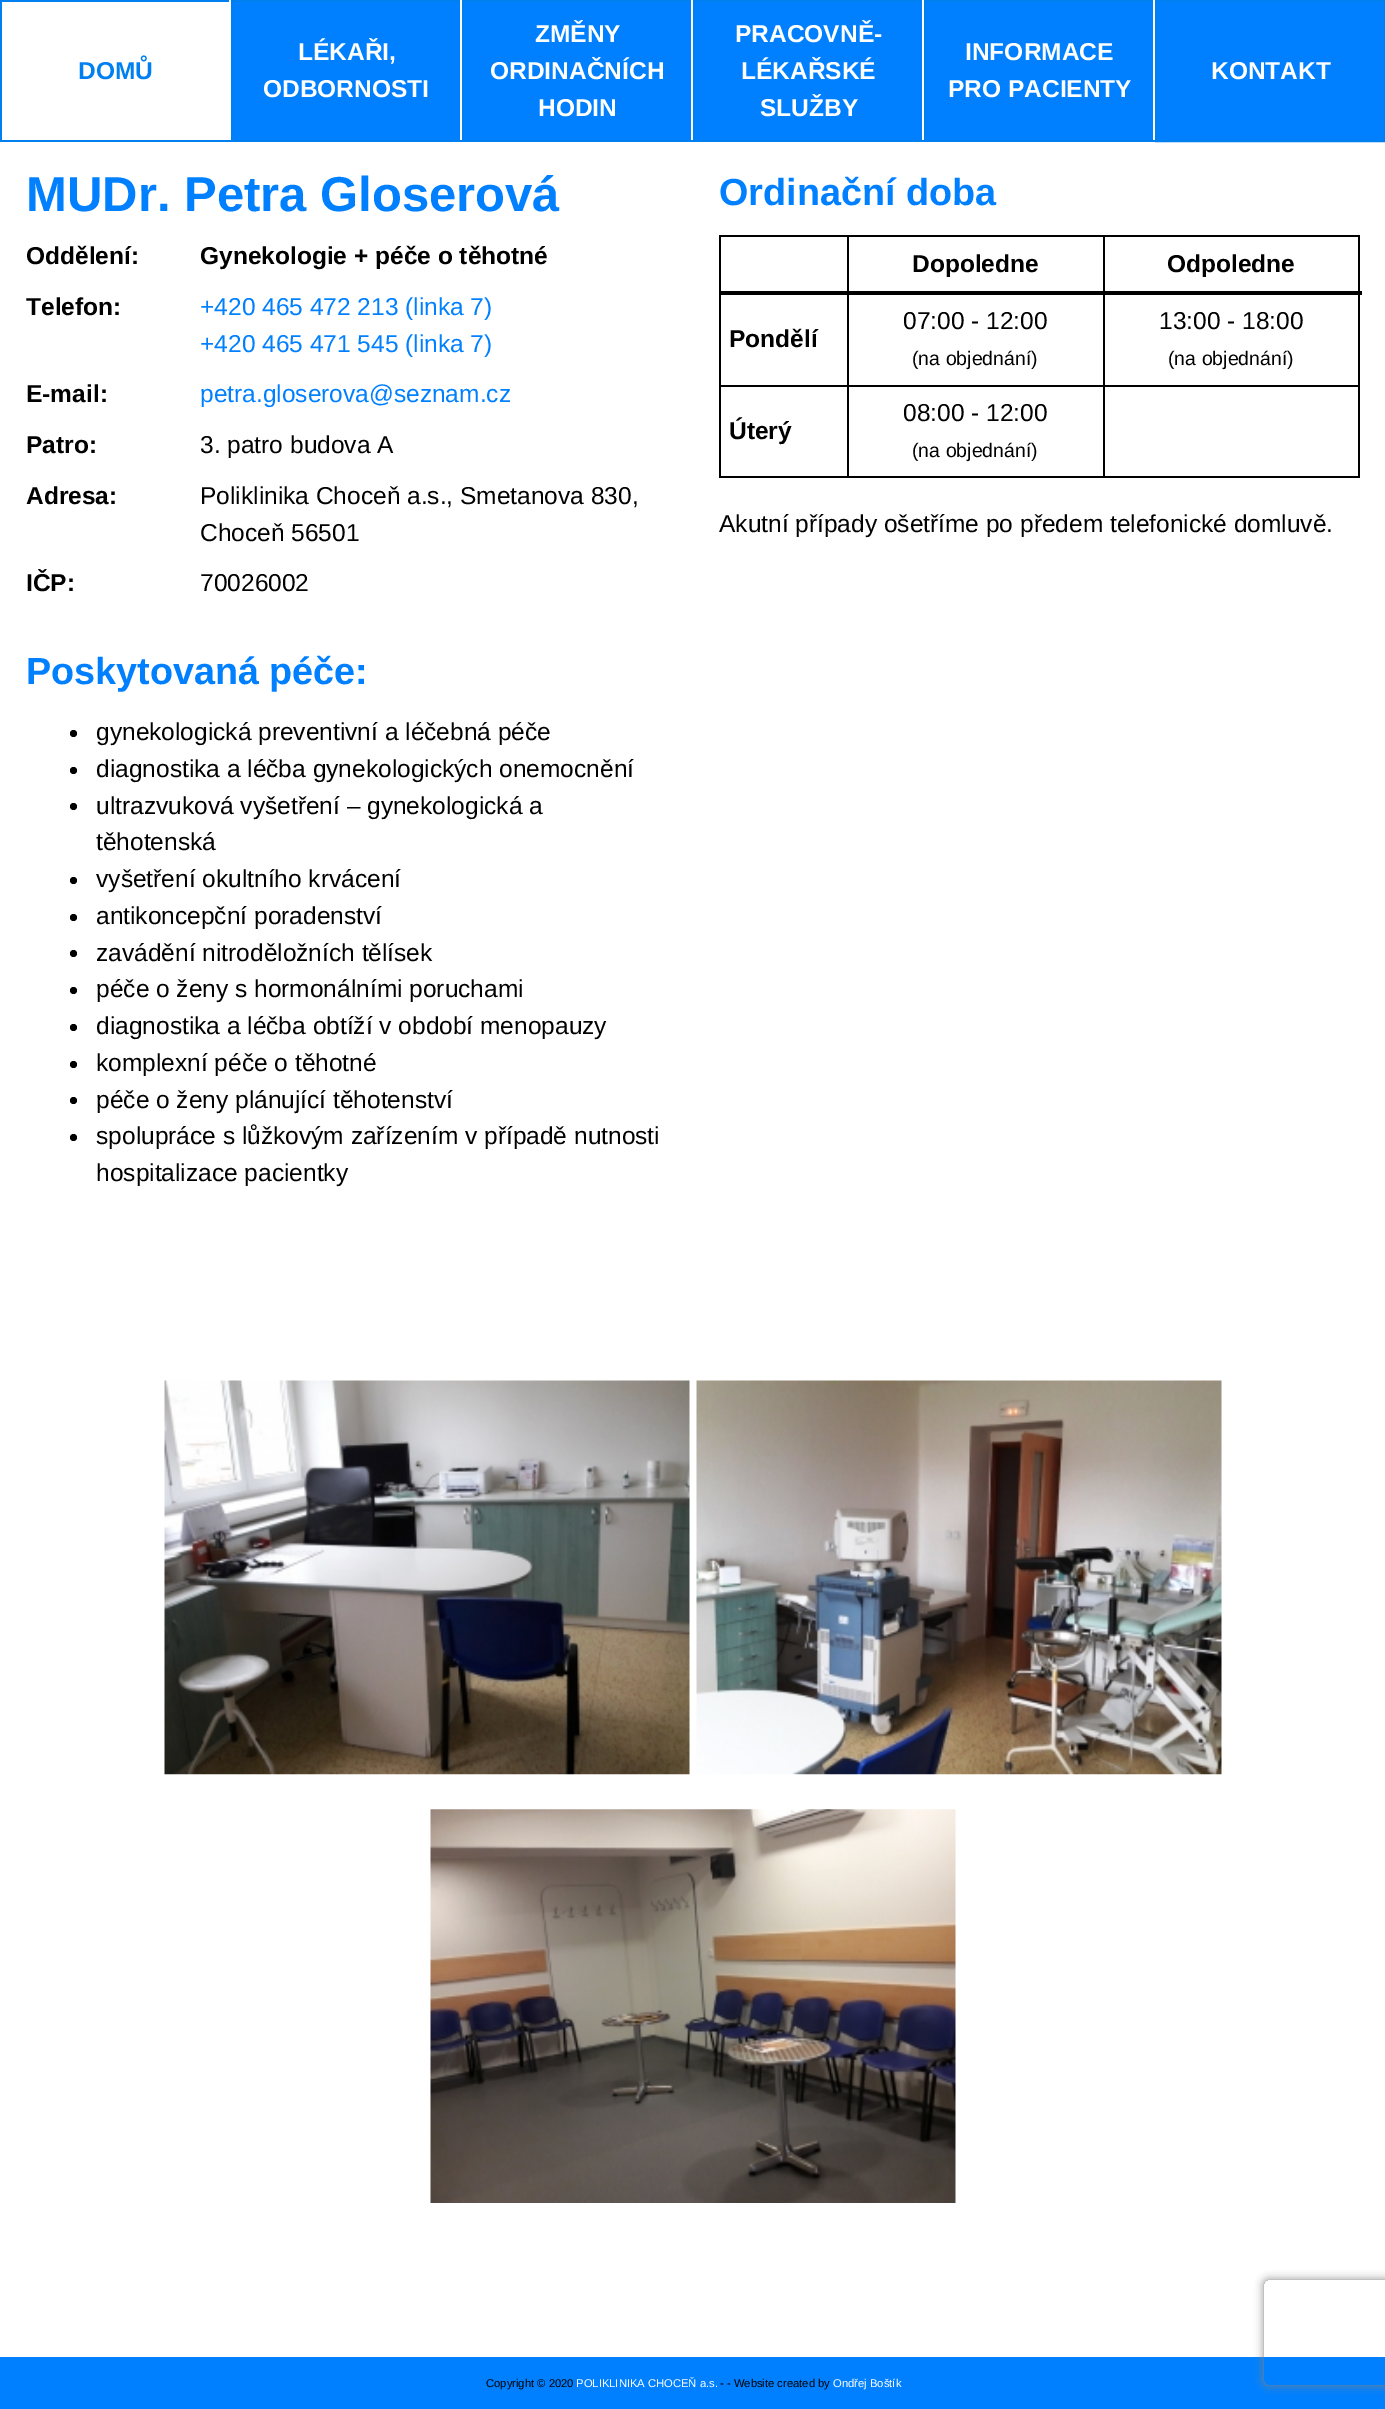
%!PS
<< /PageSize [1385 2409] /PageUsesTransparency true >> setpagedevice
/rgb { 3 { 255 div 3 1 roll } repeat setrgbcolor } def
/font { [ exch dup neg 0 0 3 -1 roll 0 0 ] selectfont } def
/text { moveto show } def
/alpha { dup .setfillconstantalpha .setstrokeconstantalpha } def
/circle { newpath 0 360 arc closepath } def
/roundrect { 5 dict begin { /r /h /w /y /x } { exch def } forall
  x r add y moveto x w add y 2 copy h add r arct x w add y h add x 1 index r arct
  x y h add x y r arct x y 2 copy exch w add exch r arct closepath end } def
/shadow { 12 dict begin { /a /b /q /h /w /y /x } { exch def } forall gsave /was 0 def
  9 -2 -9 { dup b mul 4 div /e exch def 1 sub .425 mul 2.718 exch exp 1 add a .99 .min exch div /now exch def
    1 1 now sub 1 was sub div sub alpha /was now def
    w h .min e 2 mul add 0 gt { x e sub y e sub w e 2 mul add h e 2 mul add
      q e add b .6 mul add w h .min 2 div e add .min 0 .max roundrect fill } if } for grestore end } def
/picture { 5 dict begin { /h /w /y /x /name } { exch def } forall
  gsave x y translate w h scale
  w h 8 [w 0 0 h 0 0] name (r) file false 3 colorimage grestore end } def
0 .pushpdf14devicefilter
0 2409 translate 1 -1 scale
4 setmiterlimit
255 255 255 rgb
0 0 1385 2409 rectfill
0 128 255 rgb
233 2 1151 138 rectfill
0 128 240 rgb
0 0 1155 2 rectfill
255 255 255 rgb
229 0 2 2 rectfill
0 128 240 rgb
0 140 231 2 rectfill
0 0 2 142 rectfill
255 255 255 rgb
460 0 2 142 rectfill
0 128 240 rgb
231 140 231 2 rectfill
231 0 2 142 rectfill
255 255 255 rgb
691 0 2 142 rectfill
0 128 240 rgb
462 140 231 2 rectfill
462 0 2 142 rectfill
255 255 255 rgb
922 0 2 142 rectfill
0 128 240 rgb
693 140 231 2 rectfill
693 0 2 142 rectfill
255 255 255 rgb
1153 0 2 142 rectfill
0 128 240 rgb
924 140 231 2 rectfill
924 0 2 142 rectfill
2 setlinewidth
1156 1 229 140 rectstroke
0 0 0 rgb
73.5 733.5 3.5 circle fill
73.5 770.5 3.5 circle fill
73.5 806.5 3.5 circle fill
73.5 880.5 3.5 circle fill
73.5 917.5 3.5 circle fill
73.5 953.5 3.5 circle fill
73.5 990.5 3.5 circle fill
73.5 1027.5 3.5 circle fill
73.5 1064.5 3.5 circle fill
73.5 1100.5 3.5 circle fill
73.5 1137.5 3.5 circle fill
1103 235 257 2 rectfill
1103 385 257 2 rectfill
1358 291 2 187 rectfill
1103 476 257 2 rectfill
1103 385 2 93 rectfill
847 385 257 2 rectfill
1103 291 2 96 rectfill
1103 235 2 57 rectfill
847 235 257 2 rectfill
847 476 257 2 rectfill
847 385 2 93 rectfill
719 385 130 2 rectfill
847 291 2 96 rectfill
847 235 2 57 rectfill
719 235 130 2 rectfill
719 476 130 2 rectfill
719 291 2 187 rectfill
719 235 2 57 rectfill
1358 235 2 57 rectfill
719 291 643 4 rectfill
(img_01.rgb) 164 1380 526 395 picture
(img_02.rgb) 696 1380 526 395 picture
(img_03.rgb) 430 1809 526 394 picture
0 128 255 rgb
0 2357 1385 52 rectfill
gsave
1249 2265 moveto 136 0 rlineto 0 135 rlineto -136 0 rlineto closepath 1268 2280 moveto 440 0 rlineto 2 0 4 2 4 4 rcurveto 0 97 rlineto 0 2 -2 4 -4 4 rcurveto -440 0 rlineto -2 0 -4 -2 -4 -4 rcurveto 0 -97 rlineto 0 -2 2 -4 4 -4 rcurveto closepath eoclip newpath
128 128 128 rgb
1264 2280 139 105 4 4.5 1 shadow
grestore
/LiberationSans-Bold 24.5 font
0 128 240 rgb
(DOMŮ) 78 79 text
255 255 255 rgb
(LÉKAŘI,) 298 60 text
(ODBORNOSTI) 263 97 text
(ZMĚNY) 535 42 text
(ORDINAČNÍCH) 490 79 text
(HODIN) 538 116 text
(PRACOVNĚ-) 735 42 text
(LÉKAŘSKÉ) 741 79 text
(SLUŽBY) 760 116 text
(INFORMACE) 965 60 text
(PRO PACIENTY) 948 97 text
(KONTAKT) 1211 79 text
/LiberationSans-Bold 49 font
0 128 255 rgb
(MUDr. Petra Gloserová) 26 211 text
/LiberationSans-Bold 24.5 font
0 0 0 rgb
(Oddělení:) 26 264 text
(Gynekologie + péče o těhotné) 200 264 text
(Telefon:) 26 315 text
/LiberationSans-Regular 24.5 font
0 128 255 rgb
(+420 465 472 213 \(linka 7\)) 200 315 text
(+420 465 471 545 \(linka 7\)) 200 352 text
/LiberationSans-Bold 24.5 font
0 0 0 rgb
(E-mail:) 26 402 text
/LiberationSans-Regular 24.5 font
0 128 255 rgb
(petra.gloserova@seznam.cz) 200 402 text
/LiberationSans-Bold 24.5 font
0 0 0 rgb
(Patro:) 26 453 text
/LiberationSans-Regular 24.5 font
(3. patro budova A) 200 453 text
/LiberationSans-Bold 24.5 font
(Adresa:) 26 504 text
/LiberationSans-Regular 24.5 font
(Poliklinika Choceň a.s., Smetanova 830,) 200 504 text
(Choceň 56501) 200 541 text
/LiberationSans-Bold 24.5 font
(IČP:) 26 591 text
/LiberationSans-Regular 24.5 font
(70026002) 200 591 text
/LiberationSans-Bold 37.75 font
0 128 255 rgb
(Poskytovaná péče:) 26 684 text
/LiberationSans-Regular 24.5 font
0 0 0 rgb
(gynekologická preventivní a léčebná péče) 96 740 text
(diagnostika a léčba gynekologických onemocnění) 96 777 text
(ultrazvuková vyšetření – gynekologická a) 96 814 text
(těhotenská) 96 850 text
(vyšetření okultního krvácení) 96 887 text
(antikoncepční poradenství) 96 924 text
(zavádění nitroděložních tělísek) 96 961 text
(péče o ženy s hormonálními poruchami) 96 997 text
(diagnostika a léčba obtíží v období menopauzy) 96 1034 text
(komplexní péče o těhotné) 96 1071 text
(péče o ženy plánující těhotenství) 96 1108 text
(spolupráce s lůžkovým zařízením v případě nutnosti) 96 1144 text
(hospitalizace pacientky) 96 1181 text
/LiberationSans-Bold 37.75 font
0 128 255 rgb
(Ordinační doba) 719 205 text
/LiberationSans-Bold 24.5 font
0 0 0 rgb
(Dopoledne) 912 272 text
(Odpoledne) 1167 272 text
(Pondělí) 729 347 text
/LiberationSans-Regular 24.5 font
(07:00 - 12:00) 903 329 text
/LiberationSans-Regular 19.5 font
(\(na objednání\)) 912 365 text
/LiberationSans-Regular 24.5 font
(13:00 - 18:00) 1159 329 text
/LiberationSans-Regular 19.5 font
(\(na objednání\)) 1168 365 text
/LiberationSans-Bold 24.5 font
(Úterý) 729 439 text
/LiberationSans-Regular 24.5 font
(08:00 - 12:00) 903 421 text
/LiberationSans-Regular 19.5 font
(\(na objednání\)) 912 457 text
/LiberationSans-Regular 24.5 font
(Akutní případy ošetříme po předem telefonické domluvě.) 719 532 text
/LiberationSans-Regular 11.25 font
(Copyright © 2020) 486 2387 text
255 255 255 rgb
(POLIKLINIKA CHOCEŇ a.s.) 576 2387 text
0 0 0 rgb
(- - Website created by) 720 2387 text
255 255 255 rgb
(Ondřej Boštík) 833 2387 text
.poppdf14devicefilter showpage
